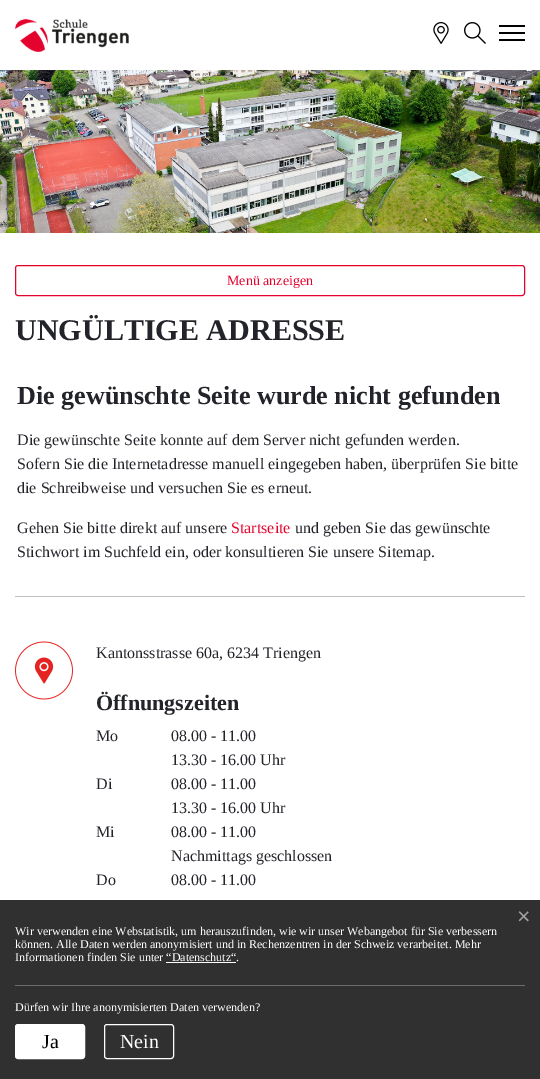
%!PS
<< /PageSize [540 1079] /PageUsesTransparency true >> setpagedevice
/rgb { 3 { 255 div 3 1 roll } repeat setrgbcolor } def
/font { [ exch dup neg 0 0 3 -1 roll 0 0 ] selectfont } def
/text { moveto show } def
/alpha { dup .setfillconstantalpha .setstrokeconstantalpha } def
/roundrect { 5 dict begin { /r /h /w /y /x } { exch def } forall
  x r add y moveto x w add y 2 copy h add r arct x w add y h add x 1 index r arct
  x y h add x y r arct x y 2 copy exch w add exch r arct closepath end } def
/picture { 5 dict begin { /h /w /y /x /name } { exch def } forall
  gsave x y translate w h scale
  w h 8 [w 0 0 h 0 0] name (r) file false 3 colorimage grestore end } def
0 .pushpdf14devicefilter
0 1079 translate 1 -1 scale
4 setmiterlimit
255 255 255 rgb
0 0 540 1079 rectfill
(img_01.rgb) 15 18 114 34 picture
(img_02.rgb) 433 22 16 22 picture
(img_03.rgb) 464 22 22 22 picture
0 0 0 rgb
499 25 26 2 rectfill
499 32 26 2 rectfill
499 39 26 2 rectfill
(img_04.rgb) 0 70 540 163 picture
228 3 46 rgb
15.5 265.5 509 30 2.5 roundrect stroke
193 192 192 rgb
15 596 510 1 rectfill
(img_05.rgb) 15 641 58 59 picture
0.9 alpha
25 25 25 rgb
0 900 540 179 rectfill
1 alpha
109 109 109 rgb
15 985 510 1 rectfill
255 255 255 rgb
166 962 70 1 rectfill
15.5 1024.5 69 34 2.5 roundrect gsave fill grestore
stroke
104.5 1024.5 69 34 2.5 roundrect stroke
/LiberationSerif-Regular 14 font
228 3 46 rgb
(Menü anzeigen) 227 285 text
/LiberationSerif-Bold 30.1 font
35 36 42 rgb
(UNGÜLTIGE ADRESSE) 15 340 text
/LiberationSerif-Bold 26.1 font
(Die gewünschte Seite wurde nicht gefunden) 17 404 text
/LiberationSerif-Regular 16 font
(Die gewünschte Seite konnte auf dem Server nicht gefunden werden.) 17 445 text
(Sofern Sie die Internetadresse manuell eingegeben haben, überprüfen Sie bitte) 17 469 text
(die Schreibweise und versuchen Sie es erneut.) 17 493 text
(Gehen Sie bitte direkt auf unsere) 17 533 text
228 3 46 rgb
(Startseite) 231 533 text
35 36 42 rgb
(und geben Sie das gewünschte) 295 533 text
(Stichwort im Suchfeld ein, oder konsultieren Sie unsere Sitemap.) 17 557 text
(Kantonsstrasse 60a, 6234 Triengen) 96 658 text
/LiberationSerif-Bold 22 font
(Öffnungszeiten) 96 710 text
/LiberationSerif-Regular 16 font
(Mo) 96 741 text
(08.00 - 11.00) 171 741 text
(13.30 - 16.00 Uhr) 171 765 text
(Di) 96 789 text
(08.00 - 11.00) 171 789 text
(13.30 - 16.00 Uhr) 171 813 text
(Mi) 96 837 text
(08.00 - 11.00) 171 837 text
(Nachmittags geschlossen) 171 861 text
(Do) 96 885 text
(08.00 - 11.00) 171 885 text
/LiberationSans-Regular 23 font
162 162 162 rgb
(×) 517 924 text
/LiberationSerif-Regular 12 font
255 255 255 rgb
(Wir verwenden eine Webstatistik, um herauszufinden, wie wir unser Webangebot für Sie verbessern) 15 935 text
(können. Alle Daten werden anonymisiert und in Rechenzentren in der Schweiz verarbeitet. Mehr) 15 948 text
(Informationen finden Sie unter “Datenschutz“.) 15 961 text
(Dürfen wir Ihre anonymisierten Daten verwenden?) 15 1011 text
/LiberationSerif-Regular 20 font
0 0 0 rgb
(Ja) 42 1048 text
255 255 255 rgb
(Nein) 120 1048 text
.poppdf14devicefilter showpage
